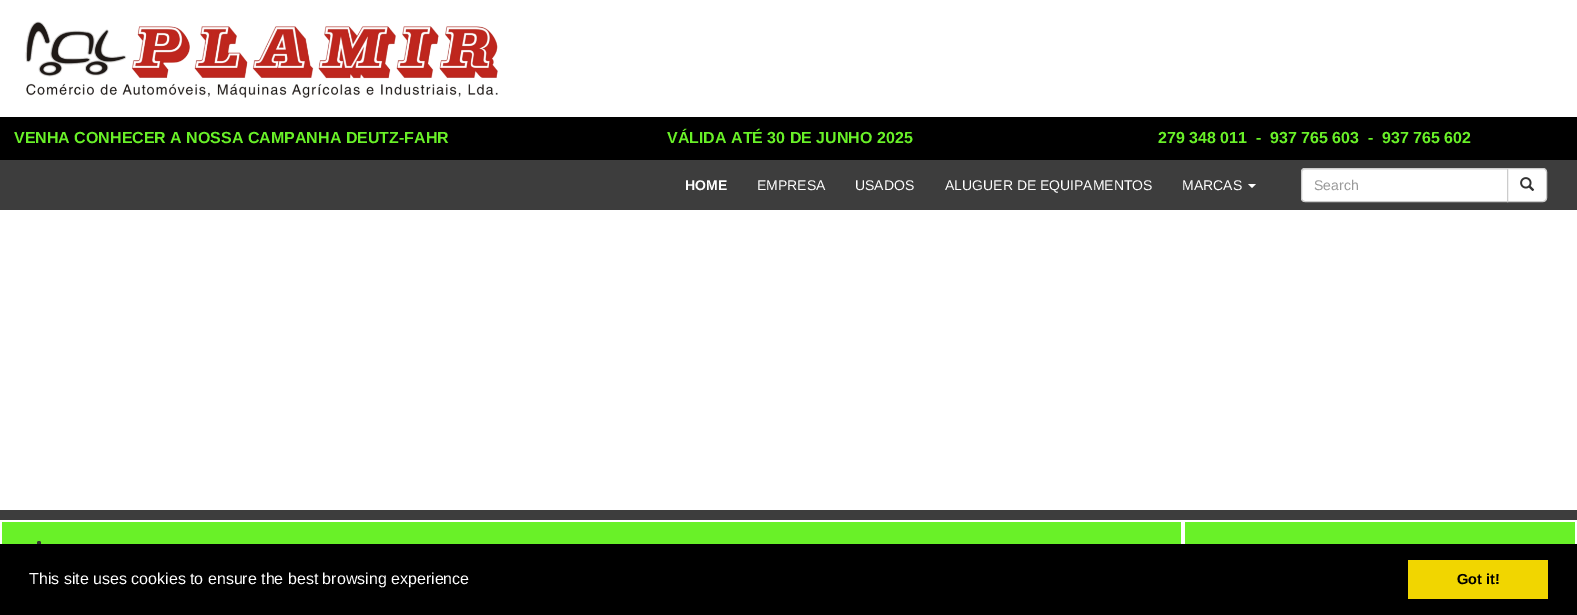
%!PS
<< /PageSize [1577 615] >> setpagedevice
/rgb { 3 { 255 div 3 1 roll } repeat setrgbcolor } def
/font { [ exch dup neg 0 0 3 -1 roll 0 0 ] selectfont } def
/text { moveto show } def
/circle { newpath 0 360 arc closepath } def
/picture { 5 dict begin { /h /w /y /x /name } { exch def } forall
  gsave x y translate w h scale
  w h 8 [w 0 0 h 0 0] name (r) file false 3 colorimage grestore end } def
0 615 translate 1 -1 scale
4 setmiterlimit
255 255 255 rgb
0 0 1577 615 rectfill
(img_01.rgb) 25 21 473 77 picture
0 0 0 rgb
0 117 1577 43 rectfill
61 61 61 rgb
0 160 1577 50 rectfill
255 255 255 rgb
1248 184 moveto 8 0 rlineto -4 4 rlineto closepath fill
1305 168 moveto 203 0 rlineto 0 34 rlineto -203 0 rlineto -2 0 -4 -2 -4 -4 rcurveto 0 -26 rlineto 0 -2 2 -4 4 -4 rcurveto closepath fill
236 236 236 rgb
1305 170 moveto 202 0 rlineto 0 -1 rlineto -203 0 rlineto -2 1 -2 2 -2 4 rcurveto 0 -2 1 -3 3 -3 rcurveto closepath fill
204 204 204 rgb
1305 168.5 moveto 202.5 0 rlineto 0 33 rlineto -202.5 0 rlineto -2 0 -3.5 -1.5 -3.5 -3.5 rcurveto 0 -26 rlineto 0 -2 1.5 -3.5 3.5 -3.5 rcurveto closepath stroke
255 255 255 rgb
1507.5 168.5 moveto 35.5 0 rlineto 2 0 3.5 1.5 3.5 3.5 rcurveto 0 26 rlineto 0 2 -1.5 3.5 -3.5 3.5 rcurveto -35.5 0 rlineto closepath gsave fill grestore
204 204 204 rgb
stroke
(img_02.rgb) 1520 177 15 14 picture
61 61 61 rgb
0 510 1577 10 rectfill
105 241 40 rgb
2 522 1179 22 rectfill
51 51 51 rgb
39 543 2 circle fill
105 241 40 rgb
1185 522 390 22 rectfill
0 0 0 rgb
0 544 1577 71 rectfill
241 214 0 rgb
1408 560 140 39 rectfill
/LiberationSans-Bold 16 font
105 241 40 rgb
(VENHA CONHECER A NOSSA CAMPANHA DEUTZ-FAHR) 14 143 text
(VÁLIDA ATÉ 30 DE JUNHO 2025) 667 143 text
(279 348 011  -) 1158 143 text
(937 765 603  -  937 765 602) 1270 143 text
/LiberationSans-Bold 14 font
255 255 255 rgb
(HOME) 685 190 text
/LiberationSans-Regular 14 font
(EMPRESA) 757 190 text
(USADOS) 855 190 text
(ALUGUER DE EQUIPAMENTOS) 945 190 text
(MARCAS) 1182 190 text
153 153 153 rgb
(Search) 1314 190 text
/LiberationSans-Regular 16 font
255 255 255 rgb
(This site uses cookies to ensure the best browsing experience) 29 584 text
/LiberationSans-Bold 14.5 font
0 0 0 rgb
(Got it!) 1457 584 text
showpage
